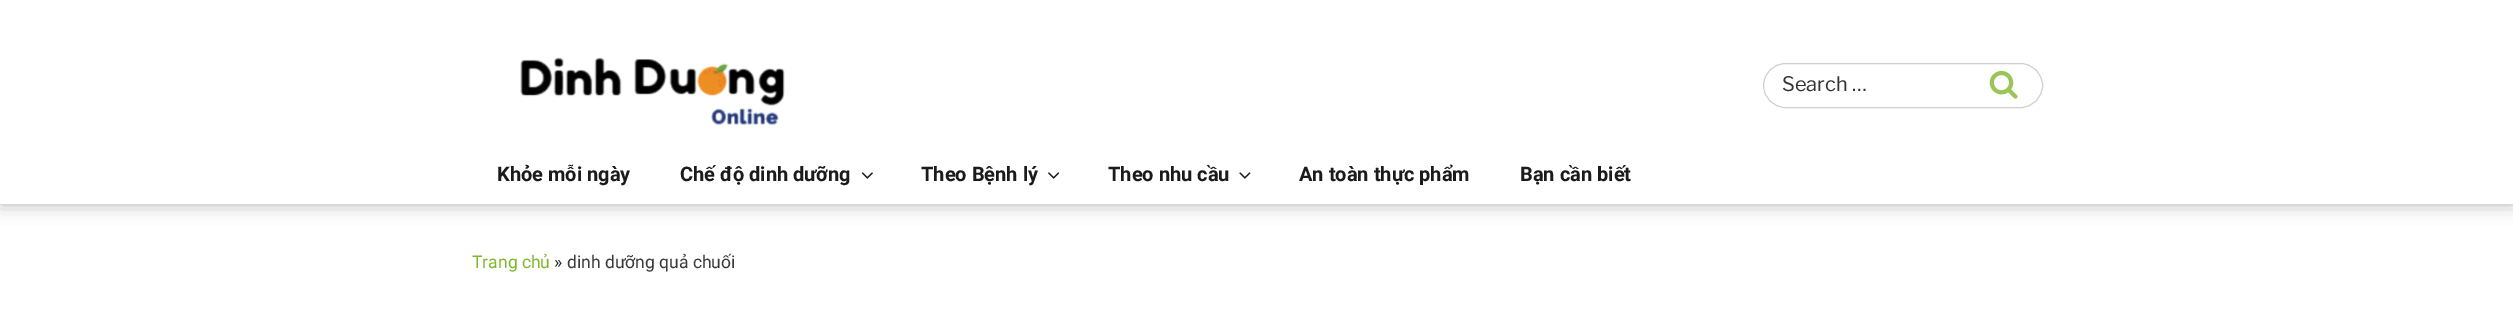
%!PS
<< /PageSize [2513 334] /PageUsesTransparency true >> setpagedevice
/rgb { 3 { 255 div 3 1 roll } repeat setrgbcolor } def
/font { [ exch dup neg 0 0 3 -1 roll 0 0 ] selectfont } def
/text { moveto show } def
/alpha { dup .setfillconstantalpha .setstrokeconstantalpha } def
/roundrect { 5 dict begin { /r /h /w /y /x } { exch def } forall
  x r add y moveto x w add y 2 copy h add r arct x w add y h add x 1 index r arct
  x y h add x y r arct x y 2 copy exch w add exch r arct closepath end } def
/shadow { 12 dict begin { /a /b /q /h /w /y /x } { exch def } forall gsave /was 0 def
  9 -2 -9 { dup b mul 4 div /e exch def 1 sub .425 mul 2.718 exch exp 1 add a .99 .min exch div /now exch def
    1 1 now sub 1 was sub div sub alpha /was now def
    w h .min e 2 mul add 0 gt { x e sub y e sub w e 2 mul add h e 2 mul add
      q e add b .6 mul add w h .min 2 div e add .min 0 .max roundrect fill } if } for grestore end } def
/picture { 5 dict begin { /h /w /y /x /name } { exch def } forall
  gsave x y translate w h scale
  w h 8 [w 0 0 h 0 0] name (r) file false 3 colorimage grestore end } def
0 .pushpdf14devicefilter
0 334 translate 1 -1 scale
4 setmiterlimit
255 255 255 rgb
0 0 2513 334 rectfill
0 0 0 rgb
0 0 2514 204 0 9.5 0.3 shadow
255 255 255 rgb
0 0 2513 204 rectfill
(img_01.rgb) 520 57 265 69 picture
208 208 208 rgb
1763.5 63.5 279 44 22 roundrect stroke
(img_02.rgb) 1989 70 29 29 picture
(img_03.rgb) 861 172 12 7 picture
(img_04.rgb) 1048 172 12 7 picture
(img_05.rgb) 1239 172 12 7 picture
/LibreFranklin-Thin 20 font
51 51 51 rgb
(Search …) 1782 91 text
/Roboto-Bold 20 font
27 27 28 rgb
(Khỏe mỗi ngày) 497 181 text
(Chế độ dinh dưỡng) 680 181 text
(Theo Bệnh lý) 921 181 text
(Theo nhu cầu) 1108 181 text
(An toàn thực phẩm) 1299 181 text
(Bạn cần biết) 1520 181 text
/Roboto-Regular 17.5 font
127 184 45 rgb
(Trang chủ) 472 268 text
33 37 41 rgb
(») 554 268 text
59 59 60 rgb
(dinh dưỡng quả chuối) 567 268 text
.poppdf14devicefilter showpage
